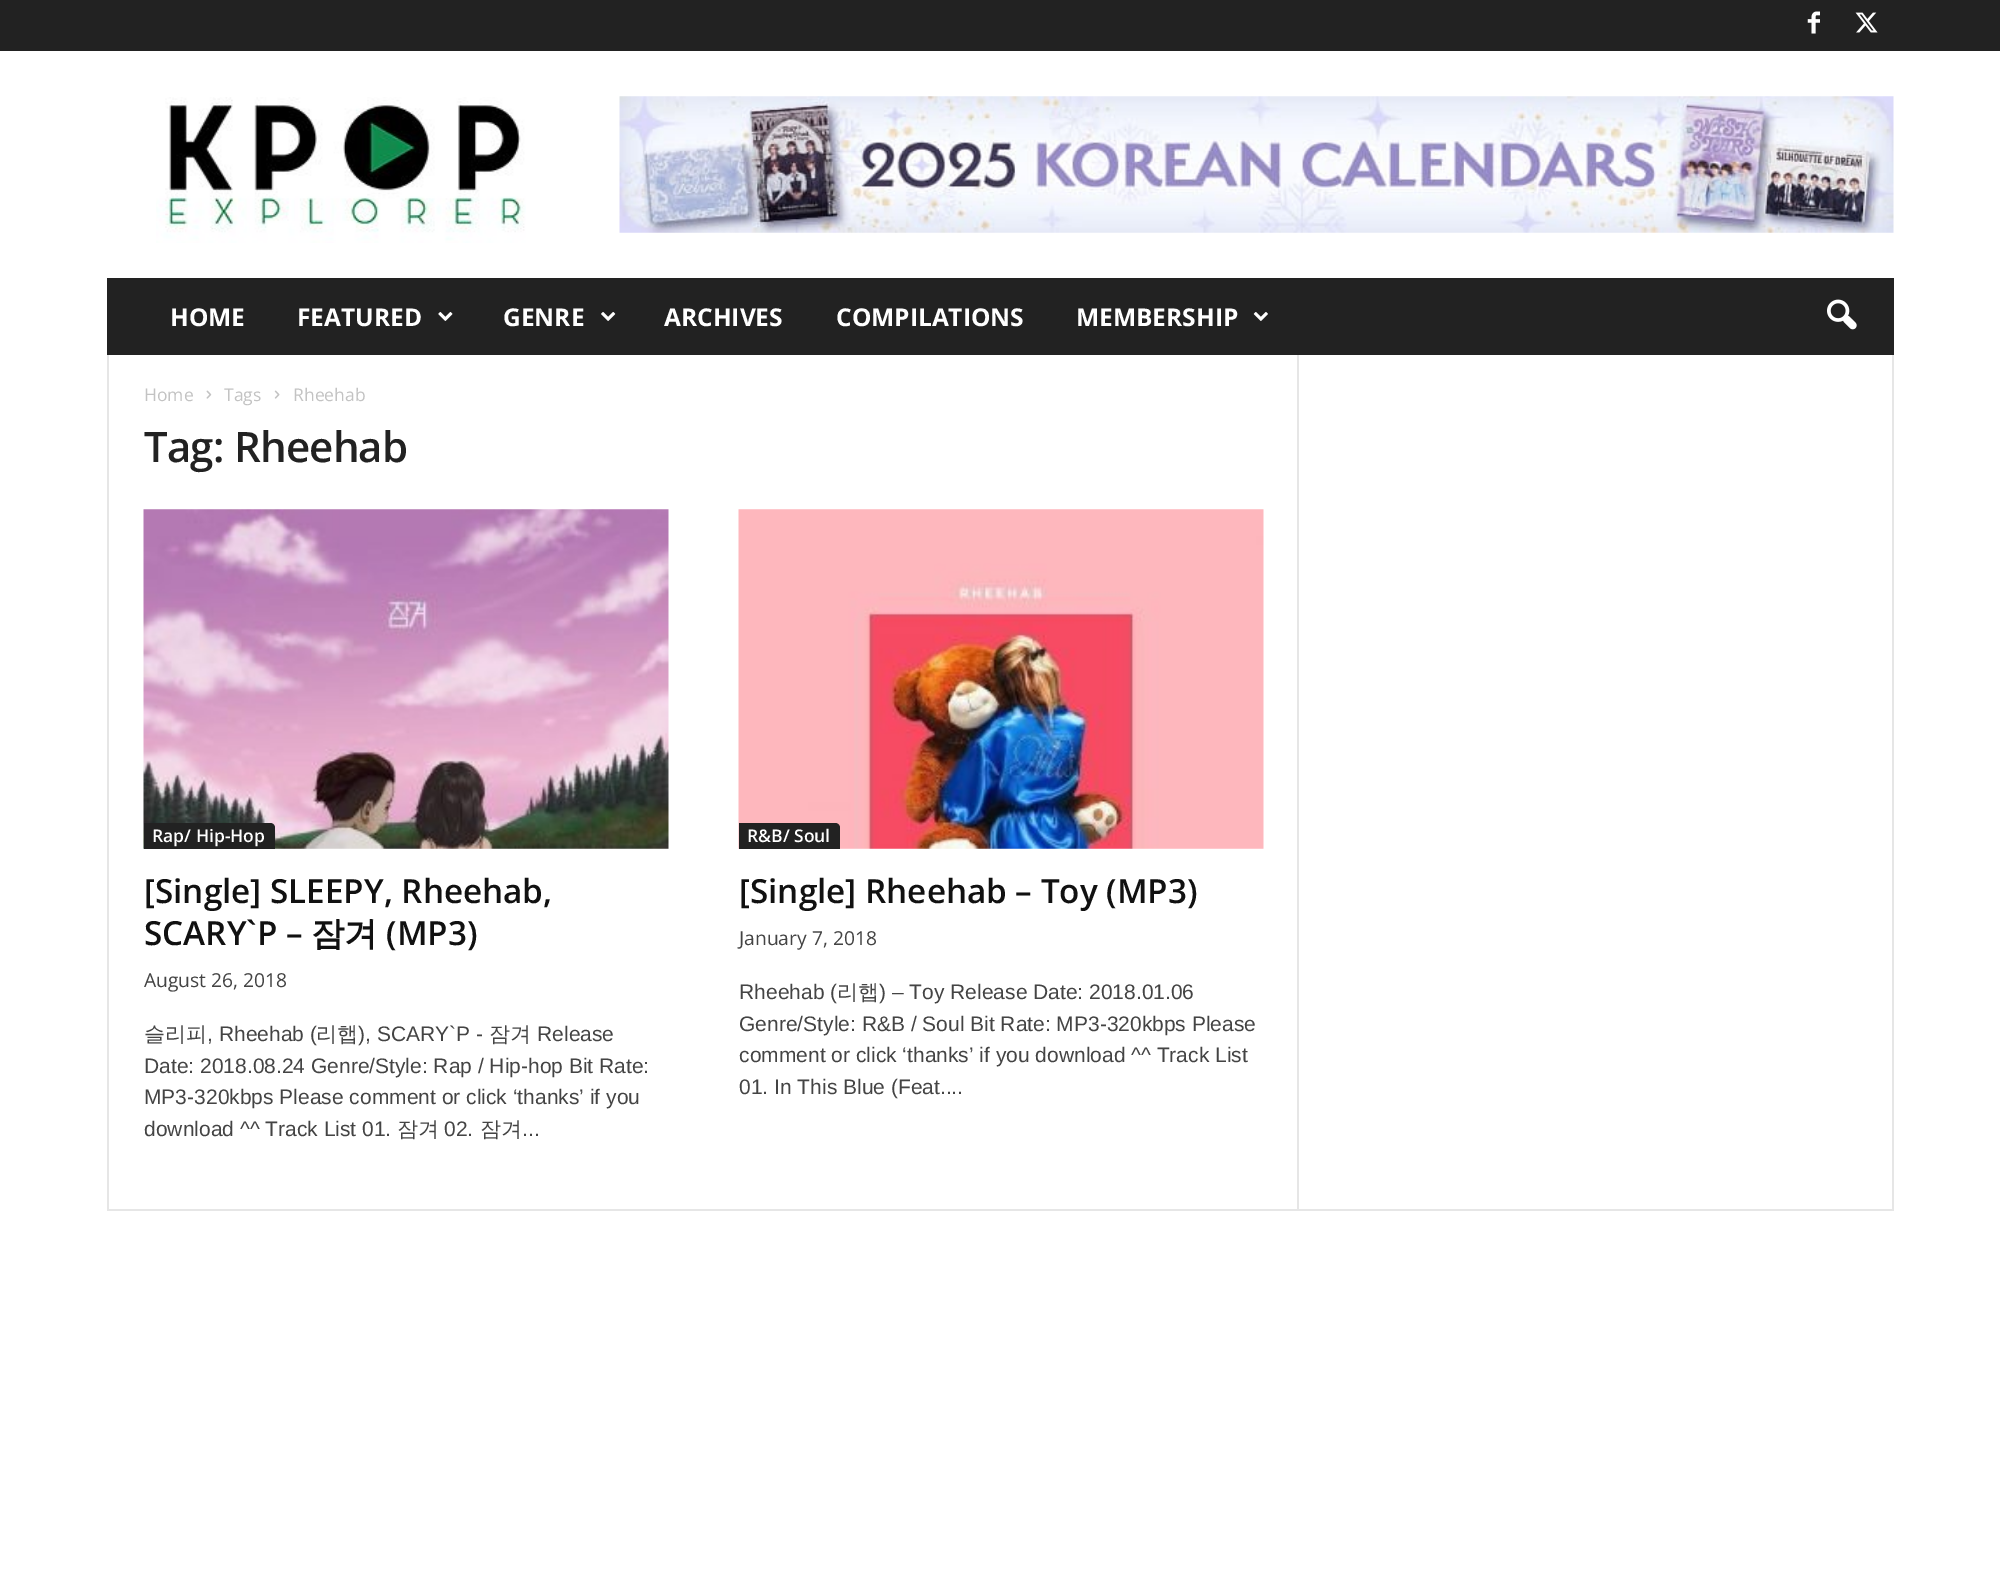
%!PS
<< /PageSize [2000 1590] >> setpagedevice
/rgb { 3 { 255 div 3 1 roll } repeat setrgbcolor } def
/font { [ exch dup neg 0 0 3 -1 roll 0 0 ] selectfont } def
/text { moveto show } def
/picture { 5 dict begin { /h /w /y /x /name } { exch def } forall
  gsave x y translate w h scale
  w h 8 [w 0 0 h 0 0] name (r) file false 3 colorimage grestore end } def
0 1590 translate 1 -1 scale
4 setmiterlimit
255 255 255 rgb
0 0 2000 1590 rectfill
34 34 34 rgb
0 0 2000 51 rectfill
(img_01.rgb) 1807 11 13 23 picture
(img_02.rgb) 1855 12 23 21 picture
(img_03.rgb) 156 97 370 146 picture
(img_04.rgb) 619 96 1275 137 picture
107 278 1787 77 rectfill
(img_05.rgb) 438 312 15 9 picture
(img_06.rgb) 601 312 15 9 picture
(img_07.rgb) 1253 312 15 9 picture
(img_08.rgb) 1827 299 30 31 picture
230 230 230 rgb
107 1209 1787 2 rectfill
107 355 2 854 rectfill
(img_09.rgb) 206 390 6 9 picture
(img_10.rgb) 274 390 6 9 picture
(img_11.rgb) 143 509 526 340 picture
34 34 34 rgb
144 823 moveto 126 0 rlineto 3 0 5 2 5 5 rcurveto 0 21 rlineto -131 0 rlineto closepath fill
(img_12.rgb) 738 509 526 340 picture
739 823 moveto 96 0 rlineto 3 0 5 2 5 5 rcurveto 0 21 rlineto -101 0 rlineto closepath fill
230 230 230 rgb
1297 355 2 854 rectfill
1892 355 2 854 rectfill
/OpenSans-Bold 24.5 font
255 255 255 rgb
(HOME) 170 326 text
(FEATURED) 297 326 text
(GENRE) 503 326 text
(ARCHIVES) 664 326 text
(COMPILATIONS) 836 326 text
(MEMBERSHIP) 1076 326 text
/OpenSans-Regular 17.5 font
195 195 195 rgb
(Home) 144 401 text
(Tags) 224 401 text
(Rheehab) 293 401 text
/OpenSans-SemiBold 42 font
34 34 34 rgb
144 462 moveto -0.8 0 (Tag: Rheehab) ashow
/OpenSans-SemiBold 17.5 font
255 255 255 rgb
(Rap/ Hip-Hop) 152 842 text
/OpenSans-SemiBold 33.25 font
17 17 17 rgb
([Single] SLEEPY, Rheehab,) 144 903 text
(SCARY`P –) 144 945 text
/WenQuanYiZenHei-Bold 33.25 font
(잠겨) 311 945 text
/OpenSans-SemiBold 33.25 font
(\(MP3\)) 386 945 text
/OpenSans-Regular 19.25 font
68 68 68 rgb
(August 26, 2018) 144 987 text
/WenQuanYiZenHei-Medium 21 font
(슬리피) 144 1041 text
/LiberationSans-Regular 21 font
(, Rheehab \() 207 1041 text
/WenQuanYiZenHei-Medium 21 font
(리햅) 316 1041 text
/LiberationSans-Regular 21 font
(\), SCARY`P -) 358 1041 text
/WenQuanYiZenHei-Medium 21 font
(잠겨) 489 1041 text
/LiberationSans-Regular 21 font
(Release) 537 1041 text
(Date: 2018.08.24 Genre/Style: Rap / Hip-hop Bit Rate:) 144 1073 text
(MP3-320kbps Please comment or click ‘thanks’ if you) 144 1104 text
(download ^^ Track List 01.) 144 1136 text
/WenQuanYiZenHei-Medium 21 font
(잠겨) 397 1136 text
/LiberationSans-Regular 21 font
(02.) 444 1136 text
/WenQuanYiZenHei-Medium 21 font
(잠겨) 480 1136 text
/LiberationSans-Regular 21 font
(...) 522 1136 text
/OpenSans-SemiBold 17.5 font
255 255 255 rgb
(R&B/ Soul) 747 842 text
/OpenSans-SemiBold 33.25 font
17 17 17 rgb
([Single] Rheehab – Toy \(MP3\)) 739 903 text
/OpenSans-Regular 19.25 font
68 68 68 rgb
(January 7, 2018) 739 945 text
/LiberationSans-Regular 21 font
(Rheehab \() 739 999 text
/WenQuanYiZenHei-Medium 21 font
(리햅) 837 999 text
/LiberationSans-Regular 21 font
(\) – Toy Release Date: 2018.01.06) 879 999 text
(Genre/Style: R&B / Soul Bit Rate: MP3-320kbps Please) 739 1031 text
(comment or click ‘thanks’ if you download ^^ Track List) 739 1062 text
(01. In This Blue \(Feat....) 739 1094 text
showpage
